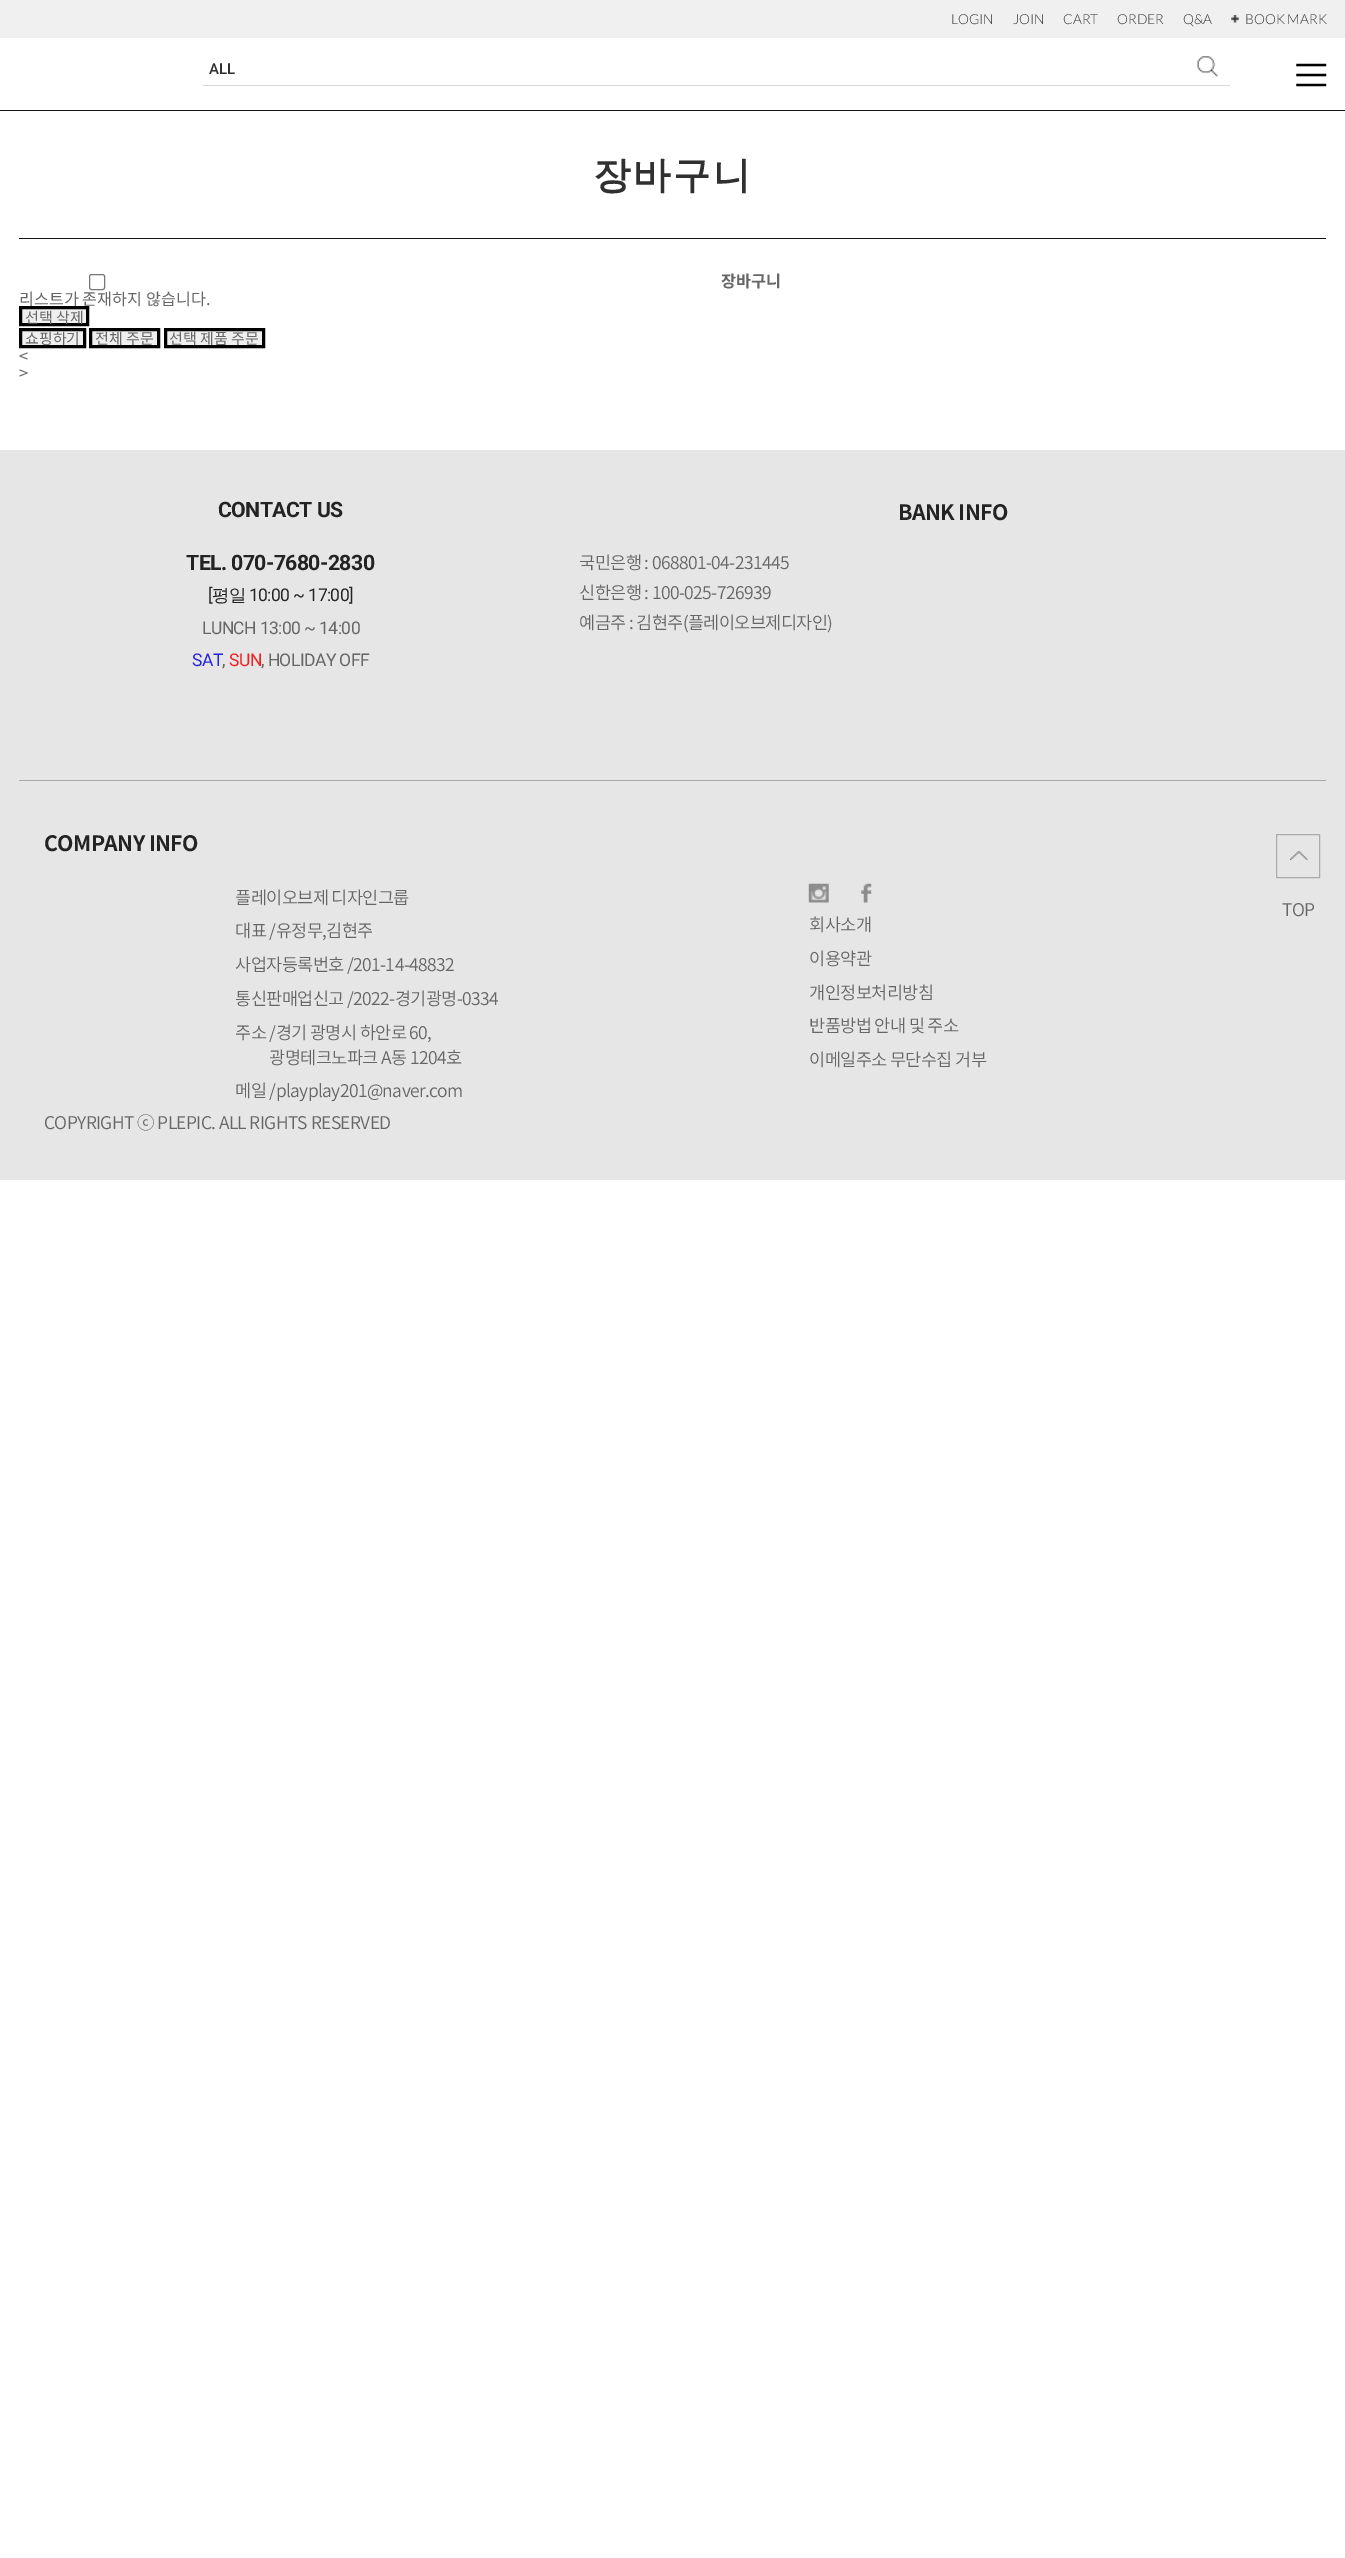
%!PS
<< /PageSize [1345 2558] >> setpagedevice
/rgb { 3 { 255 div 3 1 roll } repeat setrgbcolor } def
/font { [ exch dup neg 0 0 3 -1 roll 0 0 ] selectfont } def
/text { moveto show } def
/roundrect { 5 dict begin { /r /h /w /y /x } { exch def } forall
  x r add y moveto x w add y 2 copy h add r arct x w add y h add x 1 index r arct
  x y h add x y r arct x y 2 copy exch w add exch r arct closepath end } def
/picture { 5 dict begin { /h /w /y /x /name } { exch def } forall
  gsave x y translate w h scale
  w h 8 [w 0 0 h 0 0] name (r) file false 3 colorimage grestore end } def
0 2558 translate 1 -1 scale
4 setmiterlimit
255 255 255 rgb
0 0 1345 2558 rectfill
17 17 17 rgb
0 110 1345 1 rectfill
240 240 240 rgb
0 0 1345 38 rectfill
(img_01.rgb) 1231 15 8 8 picture
215 215 215 rgb
203 85 1027 1 rectfill
(img_02.rgb) 1197 56 21 21 picture
(img_03.rgb) 1296 63 31 24 picture
17 17 17 rgb
19 238 1307 1 rectfill
118 118 118 rgb
89.5 274.5 15 15 2 roundrect stroke
239 239 239 rgb
20.5 329.5 moveto 64 0 rlineto 0 17 rlineto -64 0 rlineto closepath gsave fill grestore
0 0 0 rgb
3 setlinewidth
stroke
239 239 239 rgb
90.5 329.5 moveto 68 0 rlineto 0 17 rlineto -68 0 rlineto closepath gsave fill grestore
0 0 0 rgb
stroke
239 239 239 rgb
165.5 329.5 moveto 98 0 rlineto 0 17 rlineto -98 0 rlineto closepath gsave fill grestore
0 0 0 rgb
stroke
230 230 230 rgb
0 450 1345 730 rectfill
169 169 169 rgb
19 780 1307 1 rectfill
(img_04.rgb) 1290 851 18 9 picture
171 171 171 rgb
1 setlinewidth
1276.5 834.5 43 43 rectstroke
(img_05.rgb) 808 883 21 20 picture
(img_06.rgb) 861 883 11 20 picture
/Lato-Light 13.75 font
48 48 48 rgb
(LOGIN) 951 24 text
(JOIN) 1013 24 text
(CART) 1063 24 text
(ORDER) 1117 24 text
(Q&A) 1183 24 text
(BOOK MARK) 1245 24 text
/Roboto-Medium 15 font
(ALL) 209 74 text
/WenQuanYiZenHei-Bold 37.5 font
593 188 moveto 2.5 0 (장바구니) ashow
/NotoSansKR-Bold 16.25 font
102 102 102 rgb
(장바구니) 721 287 text
/NotoSansKR-Regular 16.25 font
(리스트가 존재하지 않습니다.) 19 305 text
239 239 239 rgb
20.5 307.5 moveto 67 0 rlineto 0 17 rlineto -67 0 rlineto closepath gsave fill grestore
0 0 0 rgb
3 setlinewidth
stroke
gsave
21 309 65 15 rectclip
/NotoSansKR-Regular 15 font
102 102 102 rgb
(선택 삭제) 25 323 text
grestore
/NotoSansKR-Regular 15 font
102 102 102 rgb
(쇼핑하기) 25 344 text
gsave
91 330 67 15 rectclip
(전체 주문) 95 344 text
grestore
gsave
166 330 97 15 rectclip
(선택 제품 주문) 169 344 text
grestore
/NotoSansKR-Regular 16.25 font
(<) 19 362 text
(>) 19 379 text
/Roboto-Bold 21.25 font
35 35 35 rgb
218 517 moveto -0.6 0 (CONTACT US) ashow
186 570 moveto -0.6 0 (TEL. 070-7680-2830) ashow
/Roboto-Regular 17.5 font
208 601 moveto -0.6 0 ([) ashow
/WenQuanYiZenHei-Medium 17.5 font
212 601 moveto -0.6 0 (평일) ashow
/Roboto-Regular 17.5 font
249 601 moveto -0.6 0 (10:00 ~ 17:00]) ashow
102 102 102 rgb
202 634 moveto -0.6 0 (LUNCH 13:00 ~ 14:00) ashow
37 37 221 rgb
192 666 moveto -0.6 0 (SAT) ashow
102 102 102 rgb
222 666 moveto -0.6 0 (,) ashow
237 33 33 rgb
229 666 moveto -0.6 0 (SUN) ashow
102 102 102 rgb
261 666 moveto -0.6 0 (, HOLIDAY OFF) ashow
/NotoSansKR-Bold 21.25 font
35 35 35 rgb
898 520 moveto -0.6 0 (BANK INFO) ashow
/NotoSansKR-Light 17.5 font
102 102 102 rgb
579 569 moveto -0.6 0 (국민은행 : 068801-04-231445) ashow
579 599 moveto -0.6 0 (신한은행 : 100-025-726939) ashow
579 629 moveto -0.6 0 (예금주 : 김현주\(플레이오브제디자인\)) ashow
/NotoSansKR-Bold 21.25 font
35 35 35 rgb
44 851 moveto -0.6 0 (COMPANY INFO) ashow
/NotoSansKR-Light 17.5 font
102 102 102 rgb
235 904 moveto -0.6 0 (플레이오브제 디자인그룹) ashow
235 937 moveto -0.6 0 (대표 /유정무,김현주) ashow
235 971 moveto -0.6 0 (사업자등록번호 /201-14-48832) ashow
235 1005 moveto -0.6 0 (통신판매업신고 /2022-경기광명-0334) ashow
235 1039 moveto -0.6 0 (주소 /경기 광명시 하안로 60,) ashow
269 1064 moveto -0.6 0 (광명테크노파크 A동 1204호) ashow
235 1097 moveto -0.6 0 (메일 /playplay201@naver.com) ashow
1282 916 moveto -0.6 0 (TOP) ashow
809 931 moveto -0.6 0 (회사소개) ashow
809 965 moveto -0.6 0 (이용약관) ashow
809 999 moveto -0.6 0 (개인정보처리방침) ashow
809 1032 moveto -0.6 0 (반품방법 안내 및 주소) ashow
809 1066 moveto -0.6 0 (이메일주소 무단수집 거부) ashow
44 1129 moveto -0.6 0 (COPYRIGHT ⓒ PLEPIC. ALL RIGHTS RESERVED) ashow
showpage
